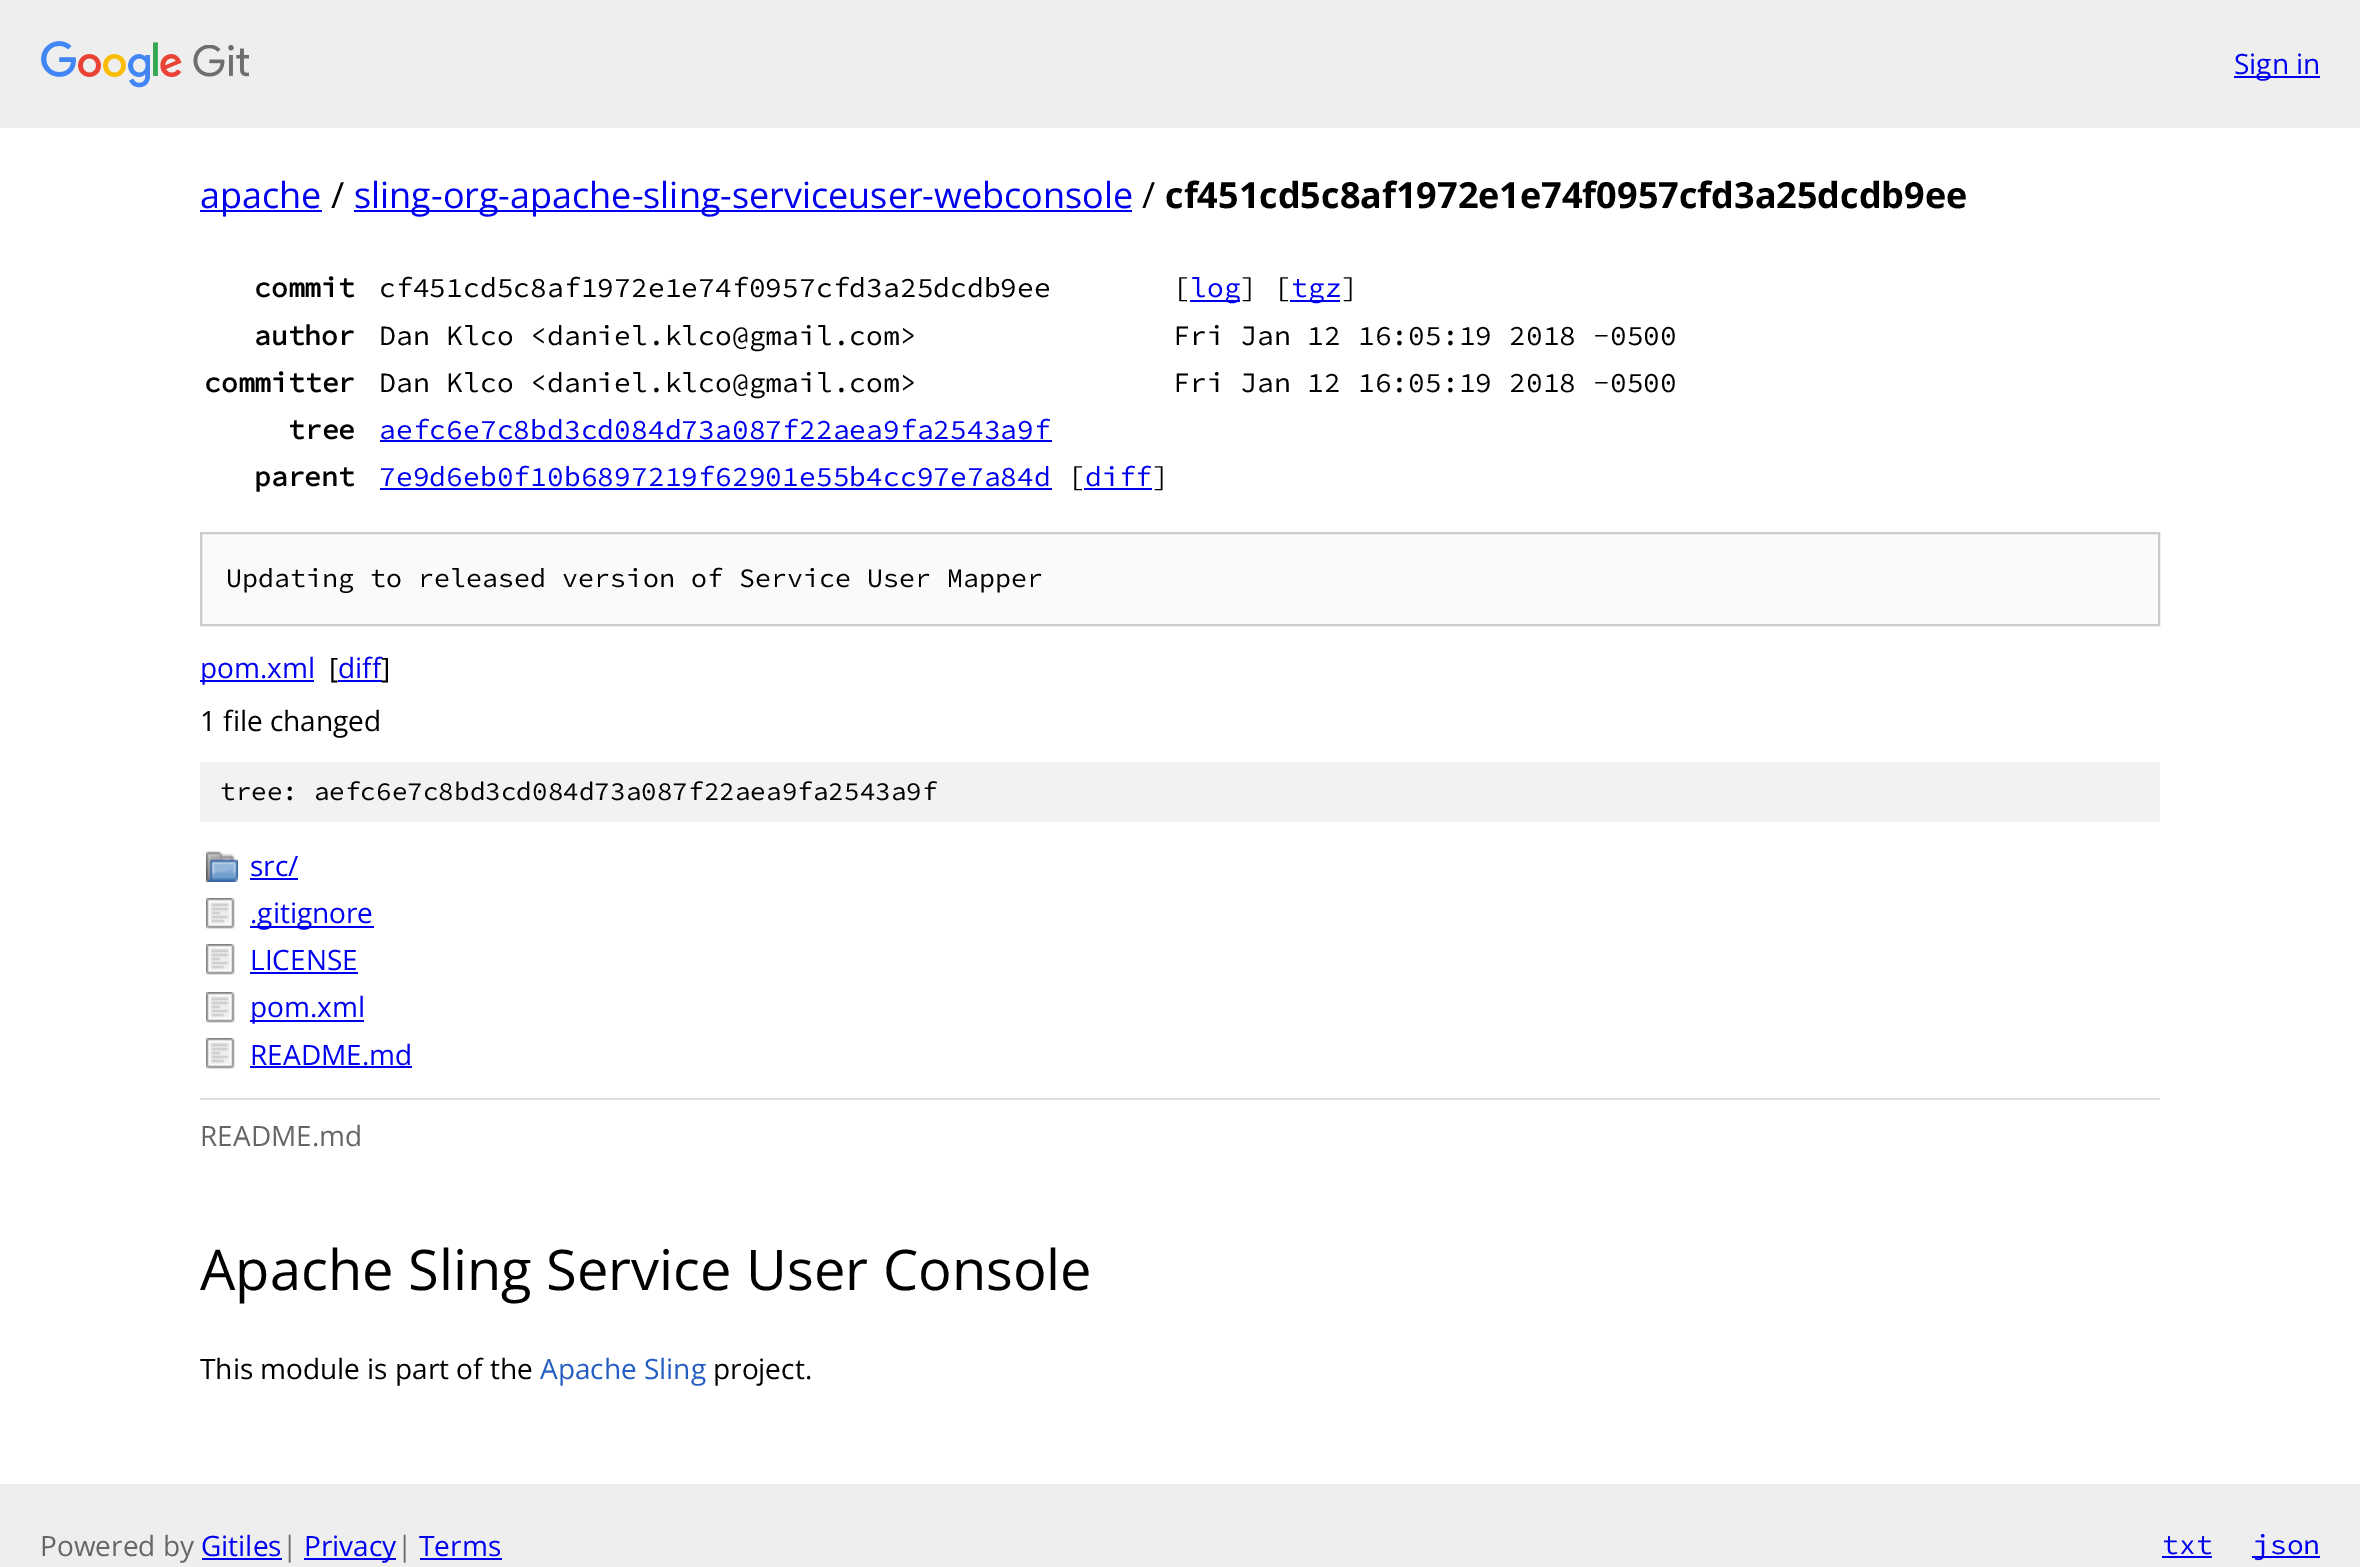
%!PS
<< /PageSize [2360 1567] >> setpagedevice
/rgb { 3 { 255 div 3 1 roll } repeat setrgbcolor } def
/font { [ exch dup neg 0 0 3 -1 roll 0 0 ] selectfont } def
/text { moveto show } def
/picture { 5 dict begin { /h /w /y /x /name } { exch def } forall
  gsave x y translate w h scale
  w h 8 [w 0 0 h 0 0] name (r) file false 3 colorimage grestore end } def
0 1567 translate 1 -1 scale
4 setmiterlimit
255 255 255 rgb
0 0 2360 1567 rectfill
238 238 238 rgb
0 0 2360 128 rectfill
(img_01.rgb) 41 41 208 47 picture
0 0 238 rgb
2234 76 86 2 rectfill
200 210 122 2 rectfill
354 210 778 2 rectfill
1190 300 50 2 rectfill
1290 300 50 2 rectfill
380 440 672 2 rectfill
380 488 672 2 rectfill
1084 488 68 2 rectfill
250 250 250 rgb
201 533 moveto 1958 0 rlineto 0 92 rlineto -1958 0 rlineto closepath gsave fill grestore
204 204 204 rgb
2 setlinewidth
stroke
0 0 238 rgb
200 680 114 2 rectfill
338 680 44 2 rectfill
241 242 243 rgb
200 762 1960 60 rectfill
(img_02.rgb) 206 851 32 31 picture
0 0 238 rgb
250 878 48 2 rectfill
(img_03.rgb) 206 898 29 31 picture
250 926 124 2 rectfill
(img_03.rgb) 206 944 29 31 picture
250 972 108 2 rectfill
(img_03.rgb) 206 992 29 31 picture
250 1020 114 2 rectfill
(img_03.rgb) 206 1038 29 31 picture
250 1066 162 2 rectfill
221 221 221 rgb
200 1098 1960 2 rectfill
238 238 238 rgb
0 1484 2360 83 rectfill
0 0 238 rgb
202 1558 80 2 rectfill
304 1558 92 2 rectfill
420 1558 82 2 rectfill
2162 1556 50 2 rectfill
2252 1556 68 2 rectfill
/OpenSans-Regular 28 font
(Sign in) 2234 74 text
/OpenSans-Regular 36 font
(apache) 200 208 text
0 0 0 rgb
(/) 331 208 text
0 0 238 rgb
(sling-org-apache-sling-serviceuser-webconsole) 354 208 text
0 0 0 rgb
(/) 1142 208 text
/OpenSans-Bold 36 font
(cf451cd5c8af1972e1e74f0957cfd3a25dcdb9ee) 1165 208 text
/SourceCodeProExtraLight-Bold 28 font
(commit) 254 297 text
/SourceCodeProExtraLight-ExtraLight 28 font
(cf451cd5c8af1972e1e74f0957cfd3a25dcdb9ee) 379 297 text
([) 1173 297 text
0 0 238 rgb
(log) 1190 297 text
0 0 0 rgb
(] [) 1240 297 text
0 0 238 rgb
(tgz) 1291 297 text
0 0 0 rgb
(]) 1341 297 text
/SourceCodeProExtraLight-Bold 28 font
(author) 254 345 text
/SourceCodeProExtraLight-ExtraLight 28 font
(Dan Klco <daniel.klco@gmail.com>) 379 345 text
(Fri Jan 12 16:05:19 2018 -0500) 1173 345 text
/SourceCodeProExtraLight-Bold 28 font
(committer) 204 392 text
/SourceCodeProExtraLight-ExtraLight 28 font
(Dan Klco <daniel.klco@gmail.com>) 379 392 text
(Fri Jan 12 16:05:19 2018 -0500) 1173 392 text
/SourceCodeProExtraLight-Bold 28 font
(tree) 288 439 text
/SourceCodeProExtraLight-ExtraLight 28 font
0 0 238 rgb
(aefc6e7c8bd3cd084d73a087f22aea9fa2543a9f) 379 439 text
/SourceCodeProExtraLight-Bold 28 font
0 0 0 rgb
(parent) 254 486 text
/SourceCodeProExtraLight-ExtraLight 28 font
0 0 238 rgb
(7e9d6eb0f10b6897219f62901e55b4cc97e7a84d) 379 486 text
0 0 0 rgb
([) 1068 486 text
0 0 238 rgb
(diff) 1085 486 text
0 0 0 rgb
(]) 1152 486 text
/SourceCodeProExtraLight-ExtraLight 26.7 font
(Updating to released version of Service User Mapper) 226 587 text
/OpenSans-Regular 28 font
0 0 238 rgb
(pom.xml) 200 678 text
0 0 0 rgb
([) 329 678 text
0 0 238 rgb
(diff) 338 678 text
0 0 0 rgb
(]) 381 678 text
(1 file changed) 200 731 text
/SourceCodeProExtraLight-ExtraLight 26 font
(tree: aefc6e7c8bd3cd084d73a087f22aea9fa2543a9f) 220 800 text
/OpenSans-Regular 28 font
0 0 238 rgb
(src/) 250 876 text
(.gitignore) 250 923 text
(LICENSE) 250 970 text
(pom.xml) 250 1017 text
(README.md) 250 1065 text
102 102 102 rgb
(README.md) 200 1146 text
/OpenSans-Regular 56 font
0 0 0 rgb
(Apache Sling Service User Console) 200 1290 text
/OpenSans-Regular 28 font
(This module is part of the) 200 1379 text
36 93 193 rgb
(Apache Sling) 540 1379 text
0 0 0 rgb
(project.) 713 1379 text
102 102 102 rgb
(Powered by) 40 1556 text
0 0 238 rgb
(Gitiles) 201 1556 text
102 102 102 rgb
(|) 282 1556 text
0 0 238 rgb
(Privacy) 304 1556 text
102 102 102 rgb
(|) 397 1556 text
0 0 238 rgb
(Terms) 419 1556 text
/SourceCodeProExtraLight-ExtraLight 28 font
(txt) 2162 1554 text
(json) 2253 1554 text
showpage
